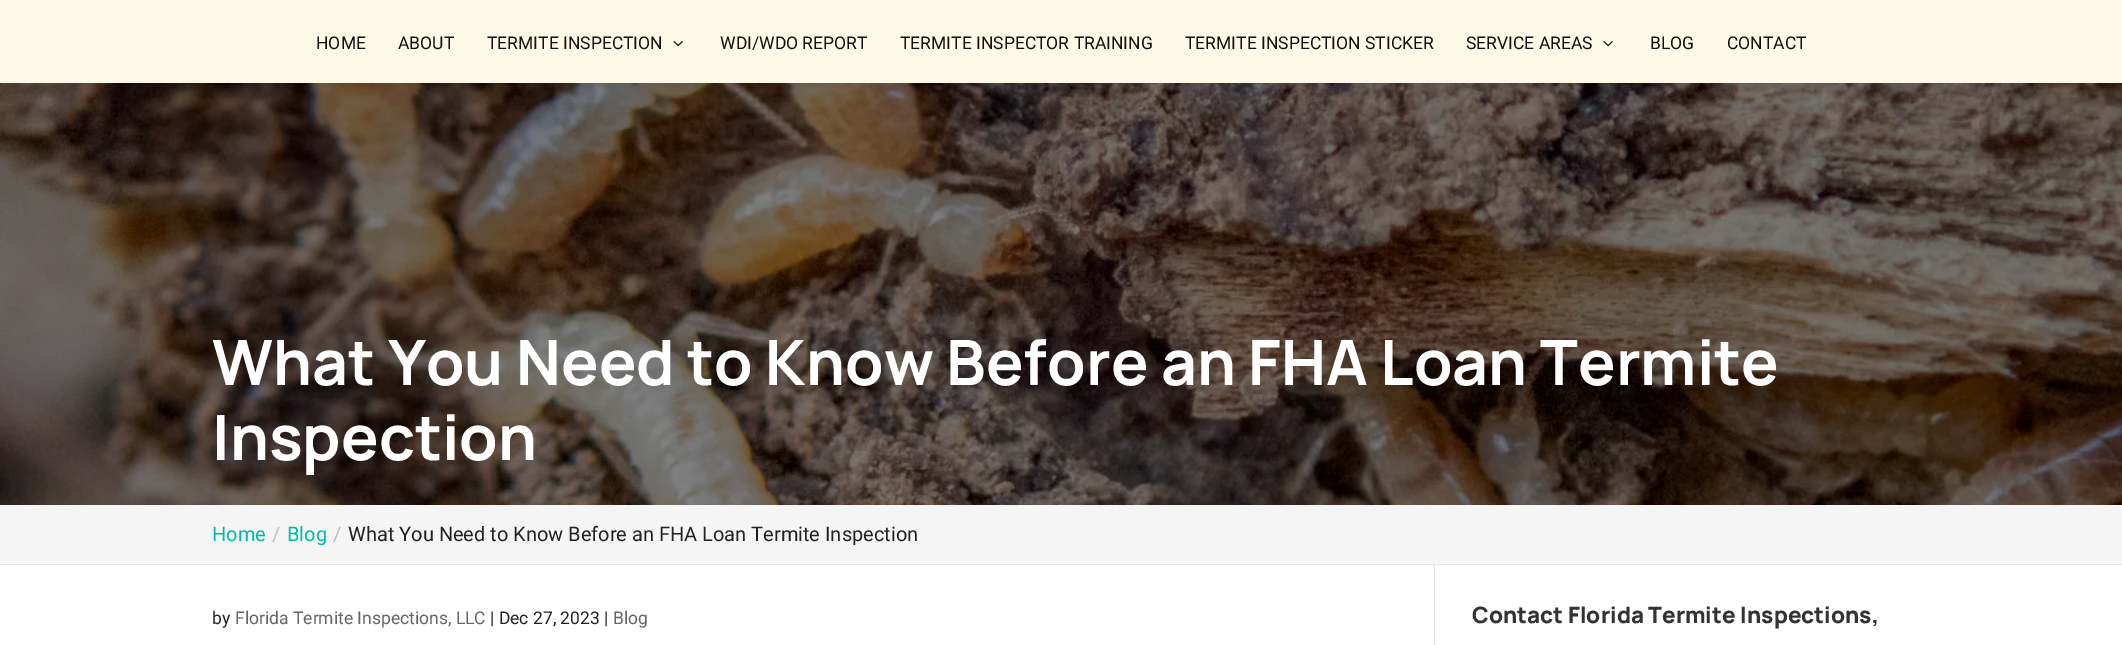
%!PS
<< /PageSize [2122 645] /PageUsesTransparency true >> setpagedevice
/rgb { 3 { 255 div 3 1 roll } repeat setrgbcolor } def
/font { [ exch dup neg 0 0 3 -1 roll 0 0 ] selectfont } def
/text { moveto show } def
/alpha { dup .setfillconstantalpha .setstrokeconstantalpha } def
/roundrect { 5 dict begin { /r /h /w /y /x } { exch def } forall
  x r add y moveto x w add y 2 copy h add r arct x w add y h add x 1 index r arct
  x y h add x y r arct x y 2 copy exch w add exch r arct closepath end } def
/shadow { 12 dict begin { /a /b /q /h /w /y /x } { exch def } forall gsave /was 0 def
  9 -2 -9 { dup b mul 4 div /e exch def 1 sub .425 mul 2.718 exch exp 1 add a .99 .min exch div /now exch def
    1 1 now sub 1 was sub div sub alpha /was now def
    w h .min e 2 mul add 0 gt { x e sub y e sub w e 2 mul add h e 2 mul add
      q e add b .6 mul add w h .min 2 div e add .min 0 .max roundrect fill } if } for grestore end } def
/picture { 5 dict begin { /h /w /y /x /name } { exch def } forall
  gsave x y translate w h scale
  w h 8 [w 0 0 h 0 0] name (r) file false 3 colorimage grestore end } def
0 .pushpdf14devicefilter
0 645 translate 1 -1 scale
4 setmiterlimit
255 255 255 rgb
0 0 2122 645 rectfill
(img_02.rgb) 0 83 2122 422 picture
0 0 0 rgb
0 0 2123 83 0 4.5 0.1 shadow
254 248 230 rgb
0 0 2122 83 rectfill
(img_01.rgb) 673 41 10 6 picture
(img_01.rgb) 1603 41 10 6 picture
230 230 230 rgb
0 564 moveto 0 1 rlineto 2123 0 rlineto 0 -59 rlineto -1 0 rlineto 0 58 rlineto closepath fill
245 245 245 rgb
0 505 2122 59 rectfill
226 226 226 rgb
1434 564 1 81 rectfill
/Roboto-Regular 17.5 font
17 17 17 rgb
(HOME) 316 49 text
(ABOUT) 398 49 text
(TERMITE INSPECTION) 487 49 text
(WDI/WDO REPORT) 720 49 text
(TERMITE INSPECTOR TRAINING) 900 49 text
(TERMITE INSPECTION STICKER) 1185 49 text
(SERVICE AREAS) 1466 49 text
(BLOG) 1650 49 text
(CONTACT) 1727 49 text
/Manrope-Bold 62.5 font
255 255 255 rgb
(What You Need to Know Before an FHA Loan Termite) 212 385 text
(Inspection) 212 460 text
/Roboto-Regular 20 font
0 187 166 rgb
(Home) 212 541 text
187 187 187 rgb
(/) 272 541 text
0 187 166 rgb
(Blog) 287 541 text
187 187 187 rgb
(/) 333 541 text
34 34 34 rgb
(What You Need to Know Before an FHA Loan Termite Inspection) 348 541 text
/Roboto-Regular 17.5 font
(by) 212 624 text
102 102 102 rgb
(Florida Termite Inspections, LLC) 235 624 text
34 34 34 rgb
(| Dec 27, 2023 |) 490 624 text
102 102 102 rgb
(Blog) 613 624 text
/Manrope-ExtraBold 22.5 font
51 51 51 rgb
(Contact Florida Termite Inspections,) 1472 623 text
.poppdf14devicefilter showpage
